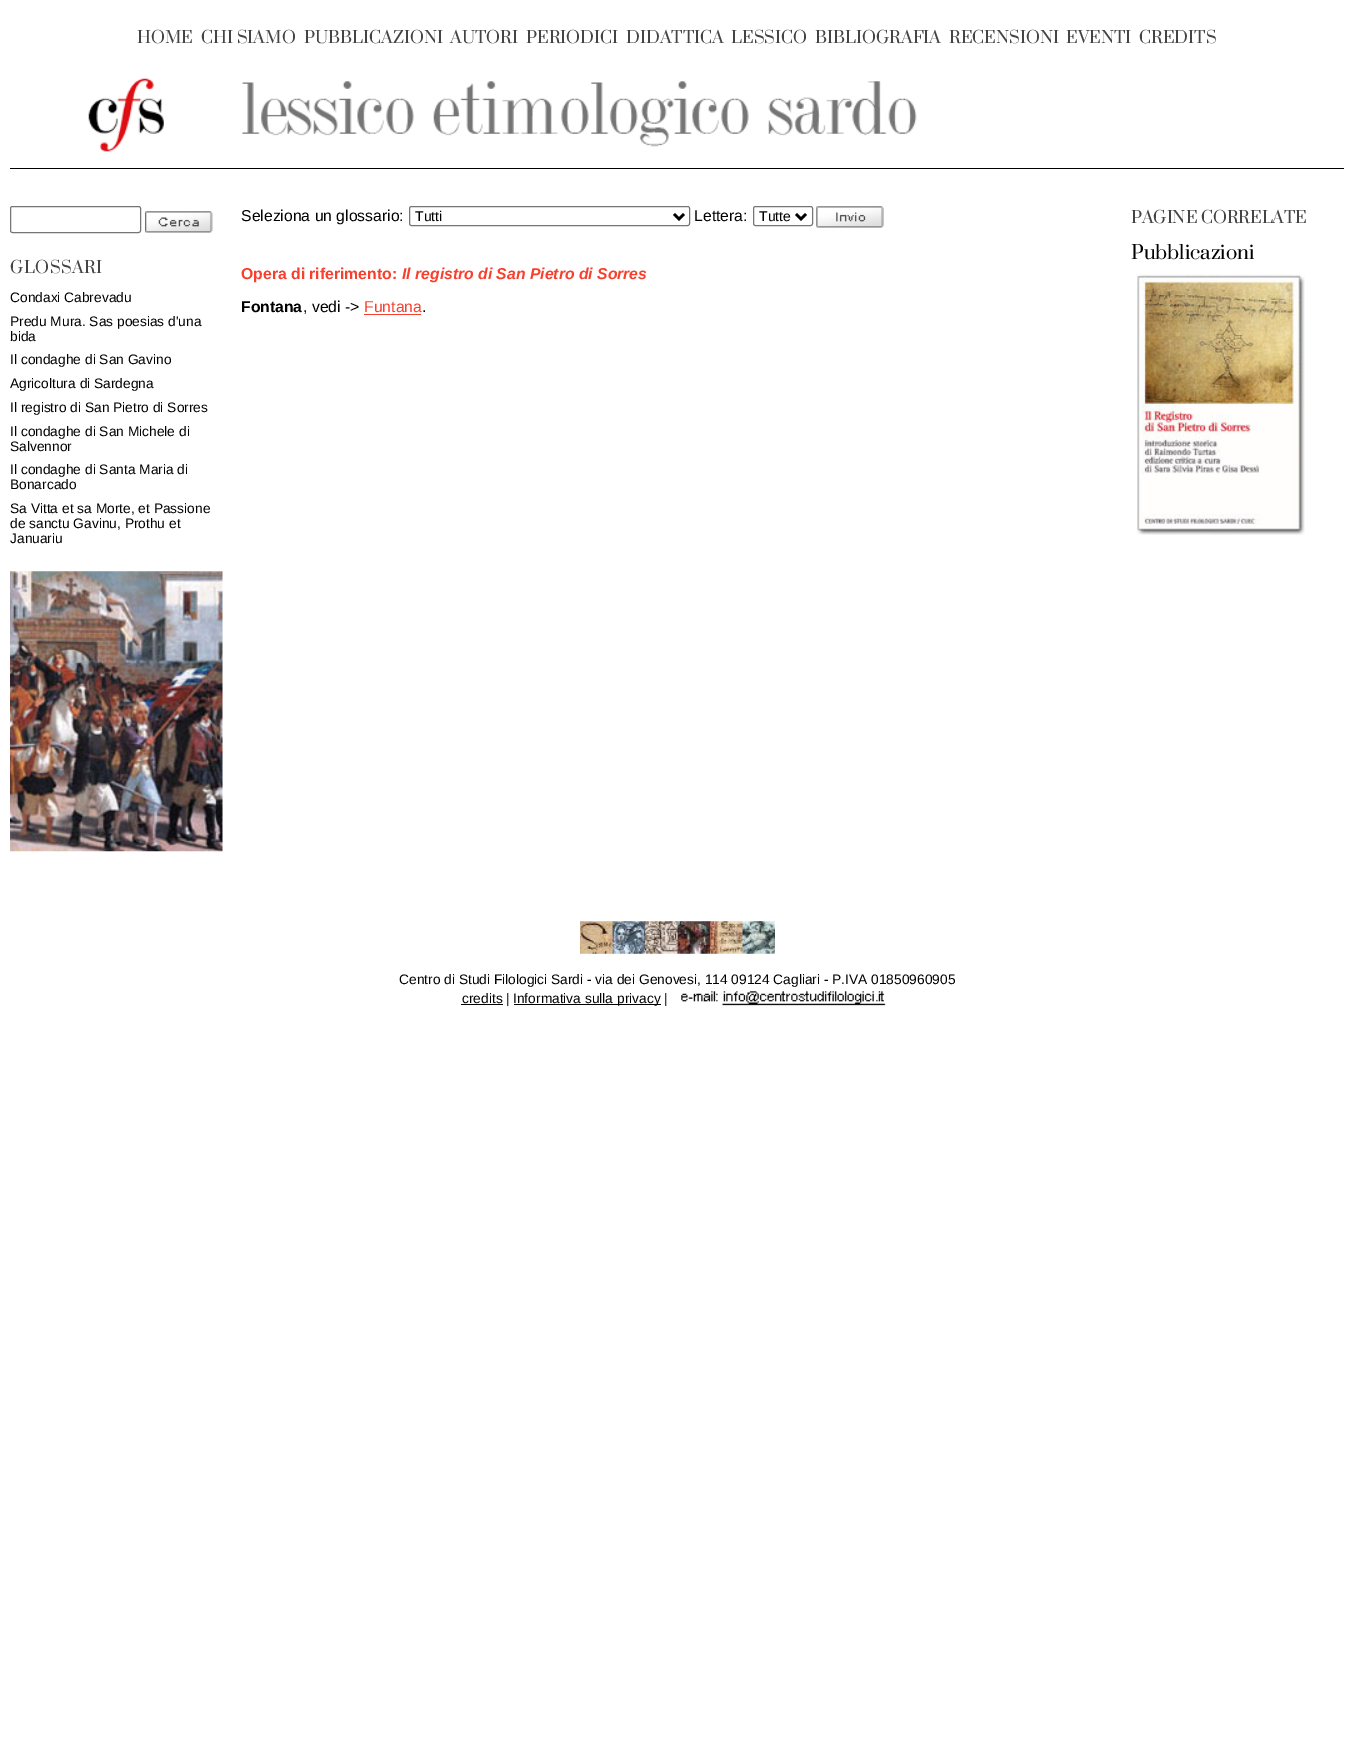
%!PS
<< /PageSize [1353 1740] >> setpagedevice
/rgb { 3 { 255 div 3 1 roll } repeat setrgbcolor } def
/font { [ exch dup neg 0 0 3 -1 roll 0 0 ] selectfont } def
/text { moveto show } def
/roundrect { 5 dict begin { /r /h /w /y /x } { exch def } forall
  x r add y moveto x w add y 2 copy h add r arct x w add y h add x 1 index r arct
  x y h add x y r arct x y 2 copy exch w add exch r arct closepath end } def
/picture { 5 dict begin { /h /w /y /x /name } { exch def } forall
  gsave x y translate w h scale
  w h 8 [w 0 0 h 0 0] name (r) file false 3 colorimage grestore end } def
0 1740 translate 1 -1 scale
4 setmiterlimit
255 255 255 rgb
0 0 1353 1740 rectfill
0 0 0 rgb
10 168 1334 1 rectfill
(img_01.rgb) 88 78 76 74 picture
(img_02.rgb) 242 81 675 66 picture
118 118 118 rgb
409.5 206.5 280 19 2 roundrect stroke
0 0 0 rgb
2.5 setlinewidth
674 214 moveto 5 5 rlineto 5 -5 rlineto stroke
118 118 118 rgb
1 setlinewidth
753.5 206.5 59 19 2 roundrect stroke
0 0 0 rgb
2.5 setlinewidth
796 214 moveto 5 5 rlineto 5 -5 rlineto stroke
(img_03.rgb) 816 206 68 22 picture
248 63 45 rgb
364 314 57 1 rectfill
(img_04.rgb) 1136 274 169 261 picture
118 118 118 rgb
1 setlinewidth
10.5 206.5 130 26 2 roundrect stroke
(img_05.rgb) 145 211 68 22 picture
(img_06.rgb) 10 571 213 281 picture
(img_07.rgb) 580 921 195 33 picture
0 0 0 rgb
461 1004 42 1 rectfill
514 1004 147 1 rectfill
(img_08.rgb) 681 991 205 15 picture
/Prata-Regular 16.25 font
68 68 68 rgb
(HOME) 137 43 text
(CHI SIAMO) 201 43 text
(PUBBLICAZIONI) 304 43 text
(AUTORI) 450 43 text
(PERIODICI) 526 43 text
(DIDATTICA) 626 43 text
(LESSICO) 731 43 text
(BIBLIOGRAFIA) 815 43 text
(RECENSIONI) 949 43 text
(EVENTI) 1066 43 text
(CREDITS) 1139 43 text
/LiberationSans-Regular 15.75 font
0 0 0 rgb
(Seleziona un glossario:) 241 221 text
/LiberationSans-Regular 14 font
(Tutti) 415 221 text
/LiberationSans-Regular 15.75 font
(Lettera:) 694 221 text
/LiberationSans-Regular 14 font
(Tutte) 759 221 text
/LiberationSans-Bold 15.75 font
248 63 45 rgb
(Opera di riferimento:) 241 279 text
/LiberationSans-BoldItalic 15.75 font
(Il registro di San Pietro di Sorres) 402 279 text
/LiberationSans-Bold 15.75 font
0 0 0 rgb
(Fontana) 241 312 text
/LiberationSans-Regular 15.75 font
(, vedi ->) 303 312 text
248 63 45 rgb
(Funtana) 364 312 text
0 0 0 rgb
(.) 422 312 text
/Prata-Regular 16.25 font
68 68 68 rgb
1131 223 moveto -0.1 0 (PAGINE CORRELATE) ashow
/Prata-Regular 18.75 font
0 0 0 rgb
(Pubblicazioni) 1131 259 text
/Prata-Regular 16.25 font
68 68 68 rgb
10 273 moveto 0.5 0 (GLOSSARI) ashow
/LiberationSans-Regular 13.75 font
0 0 0 rgb
(Condaxi Cabrevadu) 10 302 text
(Predu Mura. Sas poesias d'una) 10 326 text
(bida) 10 341 text
(Il condaghe di San Gavino) 10 364 text
(Agricoltura di Sardegna) 10 388 text
(Il registro di San Pietro di Sorres) 10 412 text
(Il condaghe di San Michele di) 10 436 text
(Salvennor) 10 451 text
(Il condaghe di Santa Maria di) 10 474 text
(Bonarcado) 10 489 text
(Sa Vitta et sa Morte, et Passione) 10 513 text
(de sanctu Gavinu, Prothu et) 10 528 text
(Januariu) 10 543 text
(Centro di Studi Filologici Sardi - via dei Genovesi, 114 09124 Cagliari - P.IVA 01850960905) 399 984 text
(credits |) 462 1003 text
(Informativa sulla privacy |) 513 1003 text
showpage
